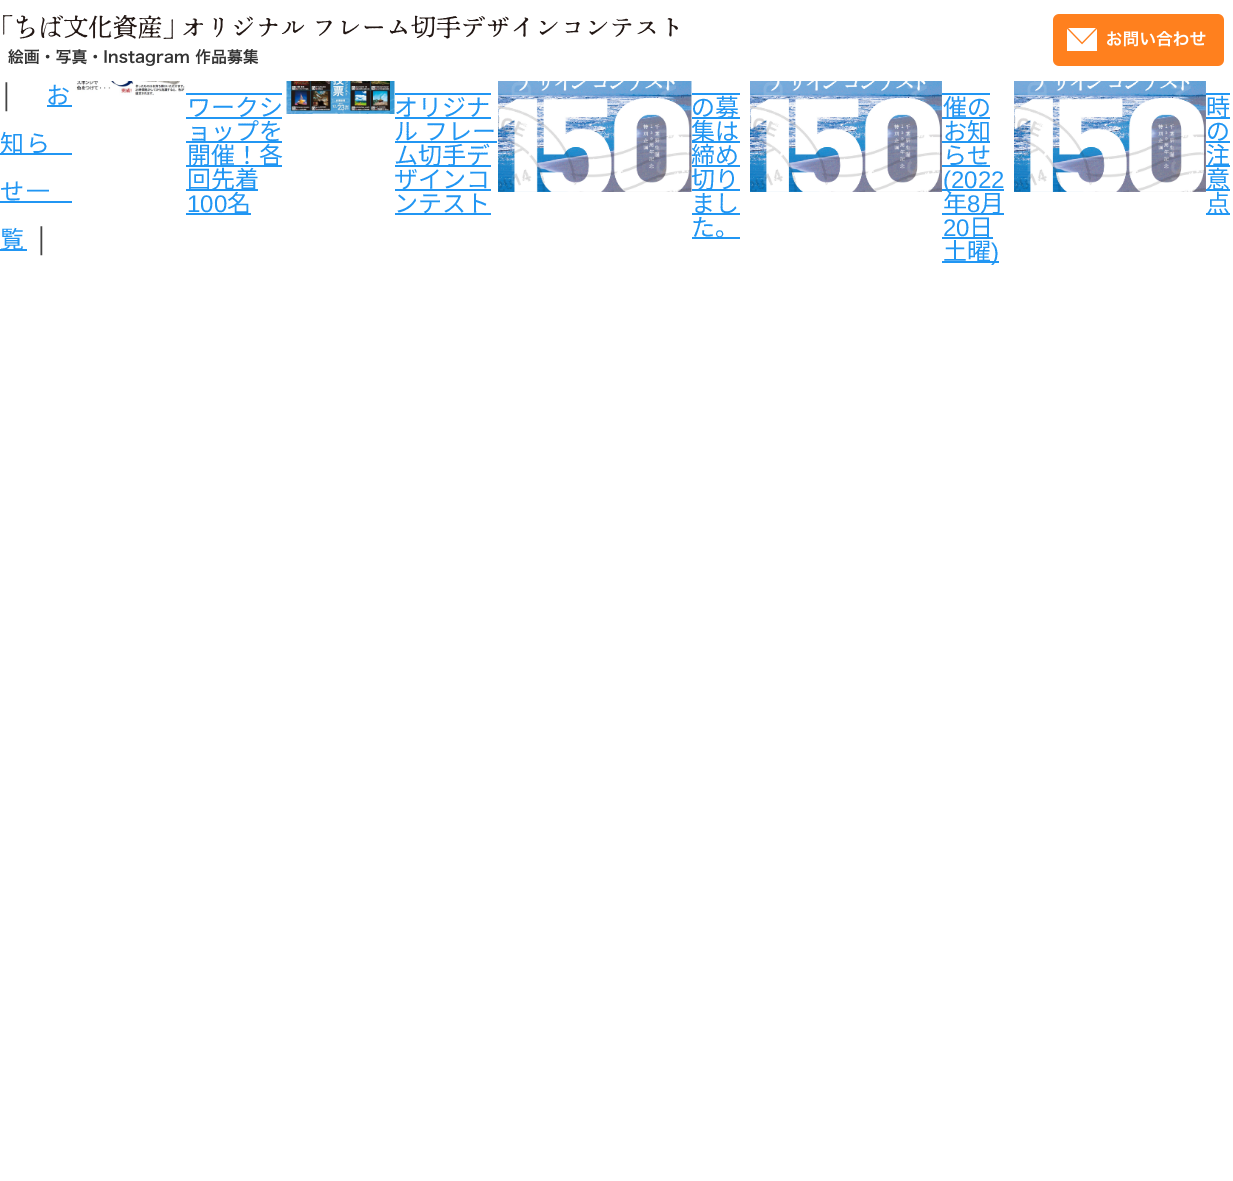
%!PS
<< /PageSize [1233 1181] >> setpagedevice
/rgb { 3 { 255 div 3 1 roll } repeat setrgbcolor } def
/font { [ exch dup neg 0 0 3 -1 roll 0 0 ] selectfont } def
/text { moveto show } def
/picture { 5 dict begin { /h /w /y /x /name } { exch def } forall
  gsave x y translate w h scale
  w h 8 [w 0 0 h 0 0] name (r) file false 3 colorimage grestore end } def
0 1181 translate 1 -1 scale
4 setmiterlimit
255 255 255 rgb
0 0 1233 1181 rectfill
(img_01.rgb) 3 15 675 51 picture
(img_02.rgb) 1053 14 171 52 picture
33 150 243 rgb
47 105 25 2 rectfill
0 153 72 2 rectfill
0 201 72 2 rectfill
0 249 27 2 rectfill
(img_03.rgb) 72 81 114 15 picture
186 93 96 2 rectfill
186 117 96 2 rectfill
186 141 96 2 rectfill
186 165 96 2 rectfill
186 189 72 2 rectfill
186 213 65 2 rectfill
(img_04.rgb) 286 81 109 33 picture
395 93 96 2 rectfill
395 117 96 2 rectfill
395 141 102 2 rectfill
395 165 96 2 rectfill
395 189 96 2 rectfill
395 213 96 2 rectfill
(img_05.rgb) 498 81 194 111 picture
692 93 48 2 rectfill
692 117 48 2 rectfill
692 141 48 2 rectfill
692 165 48 2 rectfill
692 189 48 2 rectfill
692 213 48 2 rectfill
692 237 48 2 rectfill
(img_06.rgb) 750 81 192 111 picture
942 93 48 2 rectfill
942 117 48 2 rectfill
942 141 48 2 rectfill
942 165 48 2 rectfill
942 189 62 2 rectfill
942 213 62 2 rectfill
942 237 51 2 rectfill
942 261 57 2 rectfill
(img_06.rgb) 1014 81 192 111 picture
1206 93 24 2 rectfill
1206 117 24 2 rectfill
1206 141 24 2 rectfill
1206 165 24 2 rectfill
1206 189 24 2 rectfill
1206 213 24 2 rectfill
/LiberationSans-Regular 24 font
68 68 68 rgb
0 104 moveto 2 0 (│) ashow
/NotoSansJP-Thin 24 font
33 150 243 rgb
46 104 moveto 2 0 (お) ashow
0 152 moveto 2 0 (知ら) ashow
0 200 moveto 2 0 (せ一) ashow
0 248 moveto 2 0 (覧) ashow
/LiberationSans-Regular 24 font
68 68 68 rgb
35 248 moveto 2 0 (│) ashow
/NotoSansJP-Thin 24 font
33 150 243 rgb
(ワークシ) 187 116 text
(ョップを) 187 140 text
(開催！各) 187 164 text
(回先着) 187 188 text
/LiberationSans-Regular 24 font
(100) 187 212 text
/NotoSansJP-Thin 24 font
(名) 227 212 text
(オリジナ) 394 116 text
394 140 moveto 1 0 32 (ル フレー) widthshow
(ム切手デ) 394 164 text
(ザインコ) 394 188 text
(ンテスト) 394 212 text
(の募) 691 116 text
(集は) 691 140 text
(締め) 691 164 text
(切り) 691 188 text
(まし) 691 212 text
(た。) 691 236 text
(催の) 943 116 text
(お知) 943 140 text
(らせ) 943 164 text
/LiberationSans-Regular 24 font
(\(2022) 943 188 text
/NotoSansJP-Thin 24 font
(年) 943 212 text
/LiberationSans-Regular 24 font
(8) 967 212 text
/NotoSansJP-Thin 24 font
(月) 980 212 text
/LiberationSans-Regular 24 font
(20) 943 236 text
/NotoSansJP-Thin 24 font
(日) 969 236 text
(土曜) 943 260 text
/LiberationSans-Regular 24 font
(\)) 991 260 text
/NotoSansJP-Thin 24 font
(時) 1206 116 text
(の) 1206 140 text
(注) 1206 164 text
(意) 1206 188 text
(点) 1206 212 text
showpage
